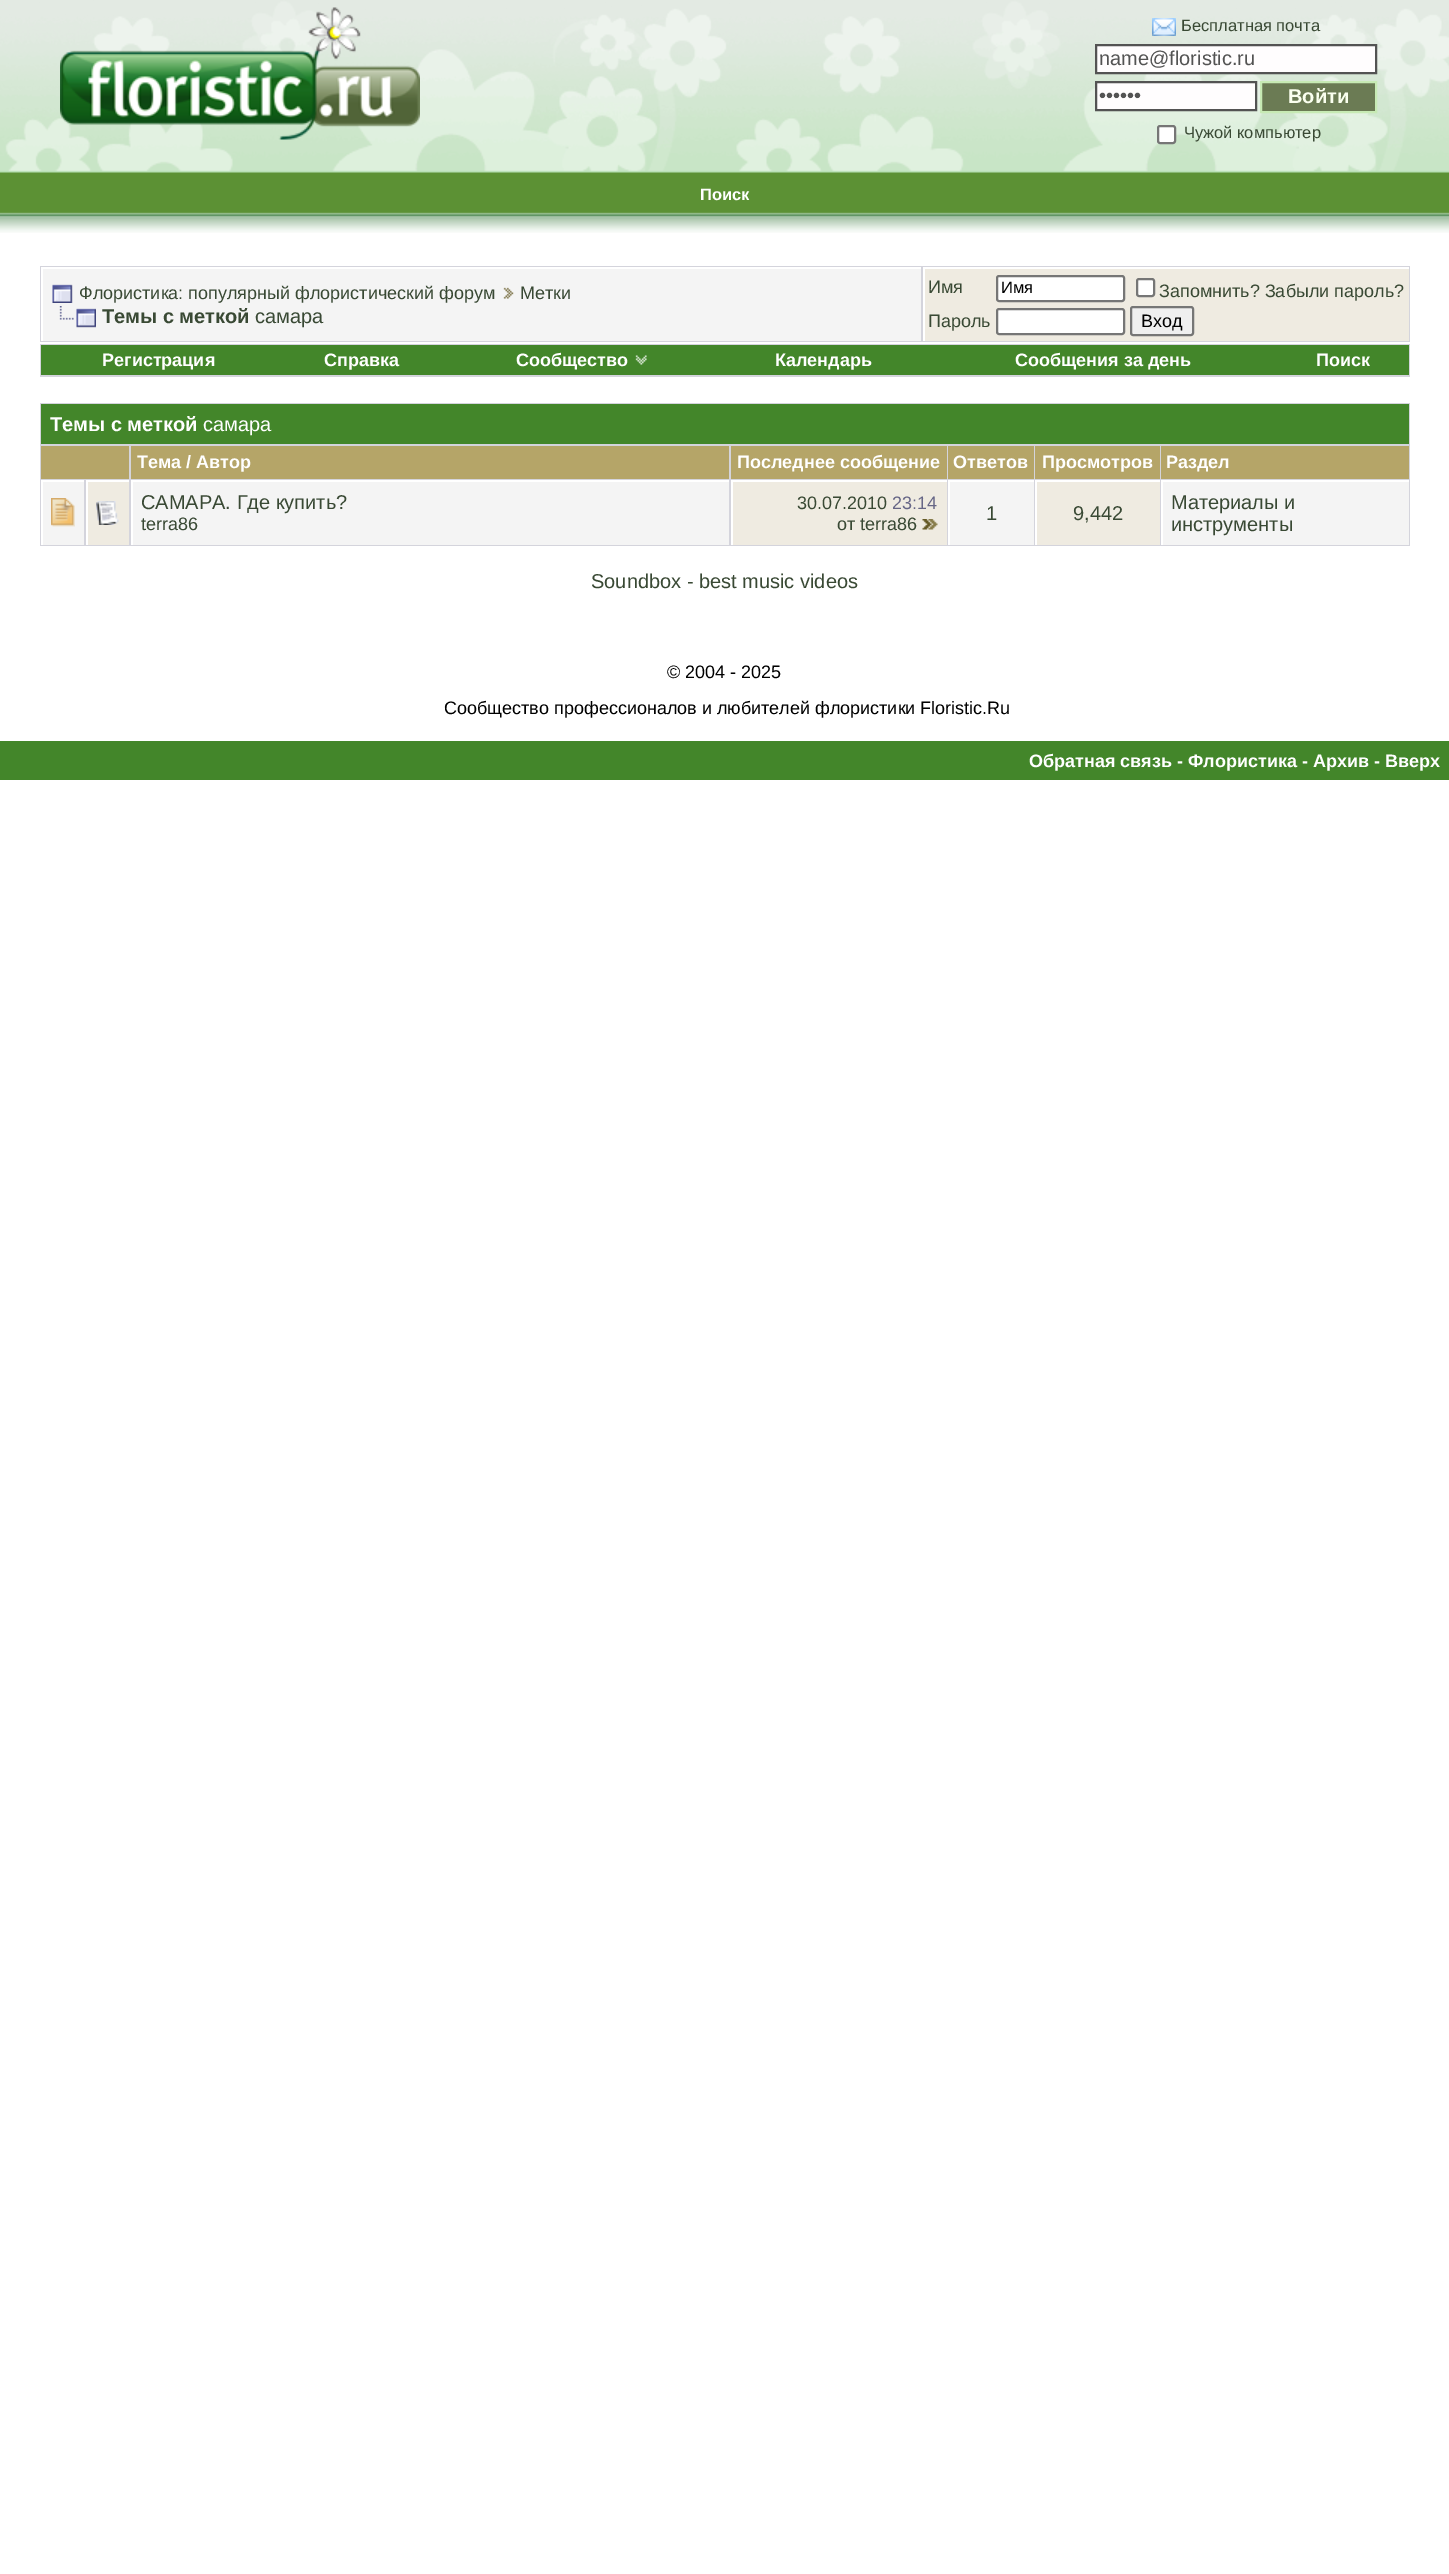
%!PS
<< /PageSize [1449 2574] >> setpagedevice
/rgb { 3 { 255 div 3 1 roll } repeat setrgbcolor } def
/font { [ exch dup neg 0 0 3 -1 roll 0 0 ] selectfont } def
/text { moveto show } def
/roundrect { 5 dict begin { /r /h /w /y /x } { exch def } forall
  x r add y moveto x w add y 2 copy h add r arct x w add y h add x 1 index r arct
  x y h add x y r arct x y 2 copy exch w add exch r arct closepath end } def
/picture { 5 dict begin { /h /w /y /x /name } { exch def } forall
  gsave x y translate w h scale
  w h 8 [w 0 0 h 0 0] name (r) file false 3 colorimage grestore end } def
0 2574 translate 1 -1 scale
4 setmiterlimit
255 255 255 rgb
0 0 1449 2574 rectfill
(img_01.rgb) 0 0 1449 233 picture
(img_02.rgb) 60 7 360 133 picture
(img_03.rgb) 1152 18 24 18 picture
255 253 254 rgb
1096 45 moveto 280 0 rlineto 0 28 rlineto -280 0 rlineto closepath gsave fill grestore
83 83 83 rgb
2 setlinewidth
stroke
255 253 254 rgb
1096 82 moveto 160 0 rlineto 0 28 rlineto -160 0 rlineto closepath gsave fill grestore
83 83 83 rgb
stroke
107 123 84 rgb
1261 82 moveto 115 0 rlineto 0 30 rlineto -115 0 rlineto closepath gsave fill grestore
199 234 180 rgb
stroke
255 255 255 rgb
1158 126 17 17 2 roundrect gsave fill grestore
118 118 118 rgb
stroke
212 212 220 rgb
40 266 1370 76 rectfill
244 244 244 rgb
43 269 878 72 rectfill
255 255 255 rgb
41 267 880 2 rectfill
41 267 2 74 rectfill
(img_04.rgb) 52 284 21 19 picture
(img_05.rgb) 503 287 11 12 picture
(img_06.rgb) 59 306 37 22 picture
239 235 225 rgb
925 269 484 72 rectfill
255 255 255 rgb
923 267 486 2 rectfill
923 267 2 74 rectfill
997 276 127 25 2 roundrect gsave fill grestore
118 118 118 rgb
stroke
255 255 255 rgb
1137 279 17 17 2 roundrect gsave fill grestore
118 118 118 rgb
stroke
255 255 255 rgb
997 309 127 25 2 roundrect gsave fill grestore
118 118 118 rgb
stroke
239 239 239 rgb
1131 307 62 28 2 roundrect gsave fill grestore
118 118 118 rgb
stroke
212 212 220 rgb
40 344 1370 33 rectfill
67 134 42 rgb
41 345 1368 30 rectfill
(img_07.rgb) 635 355 12 10 picture
212 212 220 rgb
40 403 1370 143 rectfill
67 134 42 rgb
41 404 1368 40 rectfill
181 165 104 rgb
41 446 88 33 rectfill
131 446 598 33 rectfill
731 446 216 33 rectfill
948 446 86 33 rectfill
1035 446 125 33 rectfill
1161 446 248 33 rectfill
244 244 244 rgb
43 482 41 63 rectfill
255 255 255 rgb
41 480 43 2 rectfill
41 480 2 65 rectfill
(img_08.rgb) 51 498 24 29 picture
239 235 225 rgb
88 482 41 63 rectfill
255 255 255 rgb
86 480 43 2 rectfill
86 480 2 65 rectfill
(img_09.rgb) 96 501 23 24 picture
244 244 244 rgb
133 482 596 63 rectfill
255 255 255 rgb
131 480 598 2 rectfill
131 480 2 65 rectfill
239 235 225 rgb
733 482 214 63 rectfill
255 255 255 rgb
731 480 216 2 rectfill
731 480 2 65 rectfill
(img_10.rgb) 922 519 16 11 picture
244 244 244 rgb
950 482 84 63 rectfill
255 255 255 rgb
948 480 86 2 rectfill
948 480 2 65 rectfill
239 235 225 rgb
1037 482 123 63 rectfill
255 255 255 rgb
1035 480 125 2 rectfill
1035 480 2 65 rectfill
244 244 244 rgb
1163 482 246 63 rectfill
255 255 255 rgb
1161 480 248 2 rectfill
1161 480 2 65 rectfill
67 134 42 rgb
0 741 1449 39 rectfill
/LiberationSans-Regular 16.5 font
57 73 52 rgb
(Бесплатная почта) 1181 31 text
/LiberationSans-Regular 20 font
83 83 83 rgb
(name@floristic.ru) 1099 65 text
(••••••) 1099 102 text
/LiberationSans-Bold 20 font
250 255 239 rgb
(Войти) 1288 103 text
/LiberationSans-Regular 16.5 font
57 73 52 rgb
(Чужой компьютер) 1184 138 text
/LiberationSans-Bold 16.5 font
255 255 255 rgb
(Поиск) 700 200 text
/LiberationSans-Regular 18 font
57 73 52 rgb
(Флористика: популярный флористический форум) 79 299 text
(Метки) 520 299 text
/LiberationSans-Bold 20 font
(Темы с меткой) 102 323 text
/LiberationSans-Regular 20 font
(самара) 255 323 text
/LiberationSans-Regular 18 font
(Имя) 928 293 text
/LiberationSans-Regular 16.5 font
0 0 0 rgb
(Имя) 1001 293 text
/LiberationSans-Regular 18 font
57 73 52 rgb
(Запомнить? Забыли пароль?) 1159 297 text
(Пароль) 928 327 text
0 0 0 rgb
(Вход) 1141 327 text
/LiberationSans-Bold 18 font
255 255 255 rgb
(Регистрация) 102 366 text
(Справка) 324 366 text
(Сообщество) 516 366 text
(Календарь) 775 366 text
(Сообщения за день) 1015 366 text
(Поиск) 1316 366 text
/LiberationSans-Bold 20 font
(Темы с меткой) 50 431 text
/LiberationSans-Regular 20 font
(самара) 203 431 text
/LiberationSans-Bold 18 font
(Тема / Автор) 137 468 text
(Последнее сообщение) 737 468 text
(Ответов) 953 468 text
(Просмотров) 1042 468 text
(Раздел) 1166 468 text
/LiberationSans-Regular 20 font
57 73 52 rgb
(САМАРА. Где купить?) 141 509 text
/LiberationSans-Regular 18 font
(terra86) 141 530 text
(30.07.2010) 797 509 text
102 102 134 rgb
(23:14) 892 509 text
57 73 52 rgb
(от terra86) 837 530 text
/LiberationSans-Regular 20 font
(1) 986 520 text
(9,442) 1073 520 text
(Материалы и) 1171 509 text
(инструменты) 1171 531 text
(Soundbox - best music videos) 591 588 text
/LiberationSans-Regular 18 font
0 0 0 rgb
(© 2004 - 2025) 667 678 text
(Сообщество профессионалов и любителей флористики Floristic.Ru) 444 714 text
/LiberationSans-Bold 18 font
255 255 255 rgb
(Обратная связь - Флористика - Архив - Вверх) 1029 767 text
showpage
